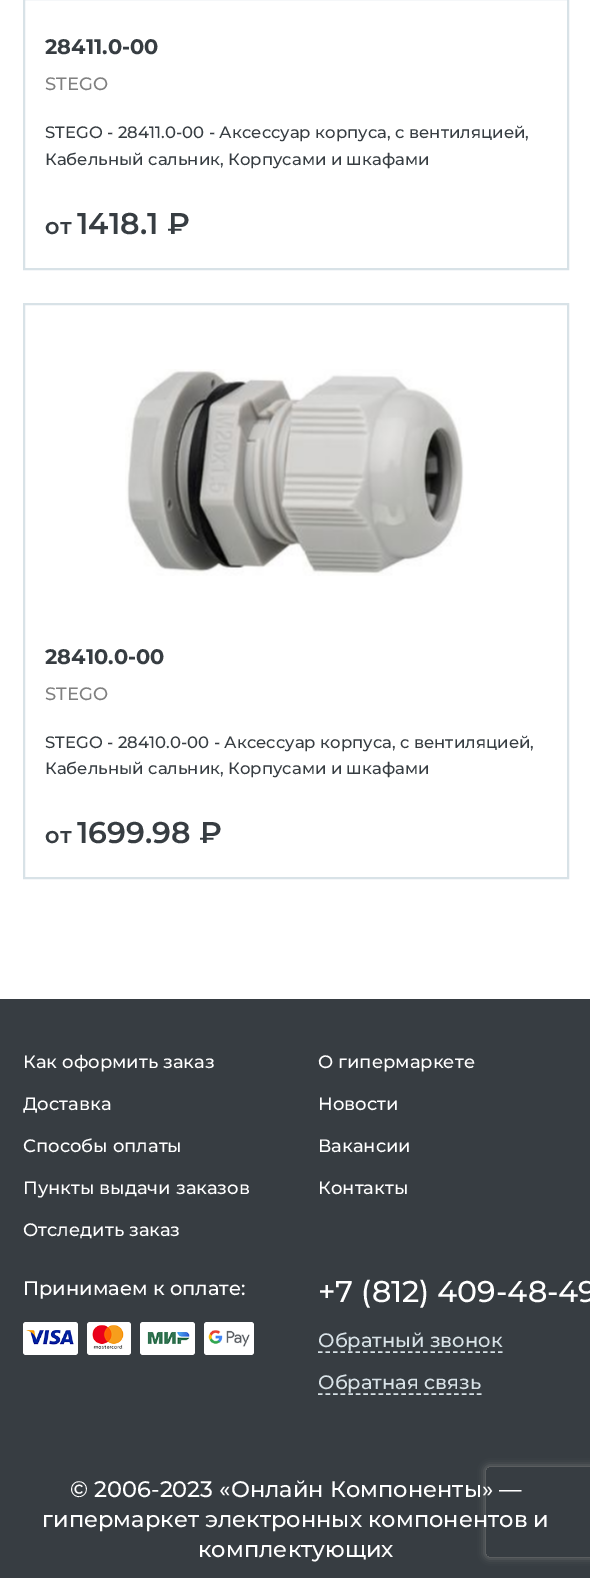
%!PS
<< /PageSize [590 1578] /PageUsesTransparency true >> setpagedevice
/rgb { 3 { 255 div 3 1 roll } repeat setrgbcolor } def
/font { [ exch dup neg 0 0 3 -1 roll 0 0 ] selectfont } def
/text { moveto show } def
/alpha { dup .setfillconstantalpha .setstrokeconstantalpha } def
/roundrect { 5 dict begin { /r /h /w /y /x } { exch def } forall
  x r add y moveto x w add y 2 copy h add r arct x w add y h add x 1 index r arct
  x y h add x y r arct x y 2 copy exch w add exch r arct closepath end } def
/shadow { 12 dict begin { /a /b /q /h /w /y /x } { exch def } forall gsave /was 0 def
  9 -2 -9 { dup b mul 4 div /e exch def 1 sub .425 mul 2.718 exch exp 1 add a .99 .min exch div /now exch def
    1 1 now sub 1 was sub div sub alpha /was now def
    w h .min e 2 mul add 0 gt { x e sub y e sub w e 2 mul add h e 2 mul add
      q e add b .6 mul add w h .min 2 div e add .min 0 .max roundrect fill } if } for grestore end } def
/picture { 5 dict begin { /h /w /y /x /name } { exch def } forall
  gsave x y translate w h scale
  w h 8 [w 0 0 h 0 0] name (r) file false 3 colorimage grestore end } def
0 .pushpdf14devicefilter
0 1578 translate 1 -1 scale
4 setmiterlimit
255 255 255 rgb
0 0 590 1578 rectfill
216 226 231 rgb
2 setlinewidth
24 -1 544 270 rectstroke
24 304 544 574 rectstroke
(img_01.rgb) 125 369 339 207 picture
55 61 66 rgb
0 999 590 579 rectfill
255 255 255 rgb
23 1322 55 33 3 roundrect fill
(img_02.rgb) 26 1330 48 15 picture
87 1322 44 33 3 roundrect fill
(img_03.rgb) 92 1325 32 24 picture
140 1322 55 33 3 roundrect fill
(img_04.rgb) 147 1332 43 12 picture
204 1322 50 33 3 roundrect fill
(img_05.rgb) 208 1330 42 17 picture
216 226 231 rgb
1.5 setlinewidth
[4.5 3] 0 setdash
318 1352 moveto 184.5 0 rlineto stroke
[4.5 3.07] 0 setdash
318 1394 moveto 163.5 0 rlineto stroke
gsave
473 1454 moveto 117 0 rlineto 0 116 rlineto -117 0 rlineto closepath 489 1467 moveto 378 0 rlineto 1.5 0 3 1.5 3 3 rcurveto 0 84 rlineto 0 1.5 -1.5 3 -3 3 rcurveto -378 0 rlineto -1.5 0 -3 -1.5 -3 -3 rcurveto 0 -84 rlineto 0 -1.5 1.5 -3 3 -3 rcurveto closepath eoclip newpath
128 128 128 rgb
486 1467 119 90 3 4 1 shadow
grestore
/Montserrat-Bold 21 font
55 61 66 rgb
(28411.0-00) 45 54 text
/Montserrat-Medium 18 font
128 128 128 rgb
(STEGO) 45 90 text
/Montserrat-Medium 16.5 font
55 61 66 rgb
(STEGO - 28411.0-00 - Аксессуар корпуса, с вентиляцией,) 45 138 text
(Кабельный сальник, Корпусами и шкафами) 45 165 text
/Montserrat-SemiBold 22.5 font
(от) 45 234 text
/Montserrat-SemiBold 30 font
(1418.1 ₽) 77 234 text
/Montserrat-Bold 21 font
(28410.0-00) 45 664 text
/Montserrat-Medium 18 font
128 128 128 rgb
(STEGO) 45 700 text
/Montserrat-Medium 16.5 font
55 61 66 rgb
(STEGO - 28410.0-00 - Аксессуар корпуса, с вентиляцией,) 45 748 text
(Кабельный сальник, Корпусами и шкафами) 45 774 text
/Montserrat-SemiBold 22.5 font
(от) 45 843 text
/Montserrat-SemiBold 30 font
(1699.98 ₽) 77 843 text
/Montserrat-Medium 18 font
255 255 255 rgb
(Как оформить заказ) 23 1068 text
(Доставка) 23 1110 text
(Способы оплаты) 23 1152 text
(Пункты выдачи заказов) 23 1194 text
(Отследить заказ) 23 1236 text
(О гипермаркете) 318 1068 text
(Новости) 318 1110 text
(Вакансии) 318 1152 text
(Контакты) 318 1194 text
/Montserrat-Medium 19.5 font
(Принимаем к оплате:) 23 1295 text
/Montserrat-Medium 30 font
(+7 \(812\) 409-48-49) 318 1302 text
/Montserrat-Medium 19.5 font
216 226 231 rgb
(Обратный звонок) 318 1347 text
(Обратная связь) 318 1389 text
/Montserrat-Medium 22.5 font
255 255 255 rgb
(© 2006-2023 «Онлайн Компоненты» —) 70 1497 text
(гипермаркет электронных компонентов и) 42 1527 text
(комплектующих) 198 1557 text
.poppdf14devicefilter showpage
